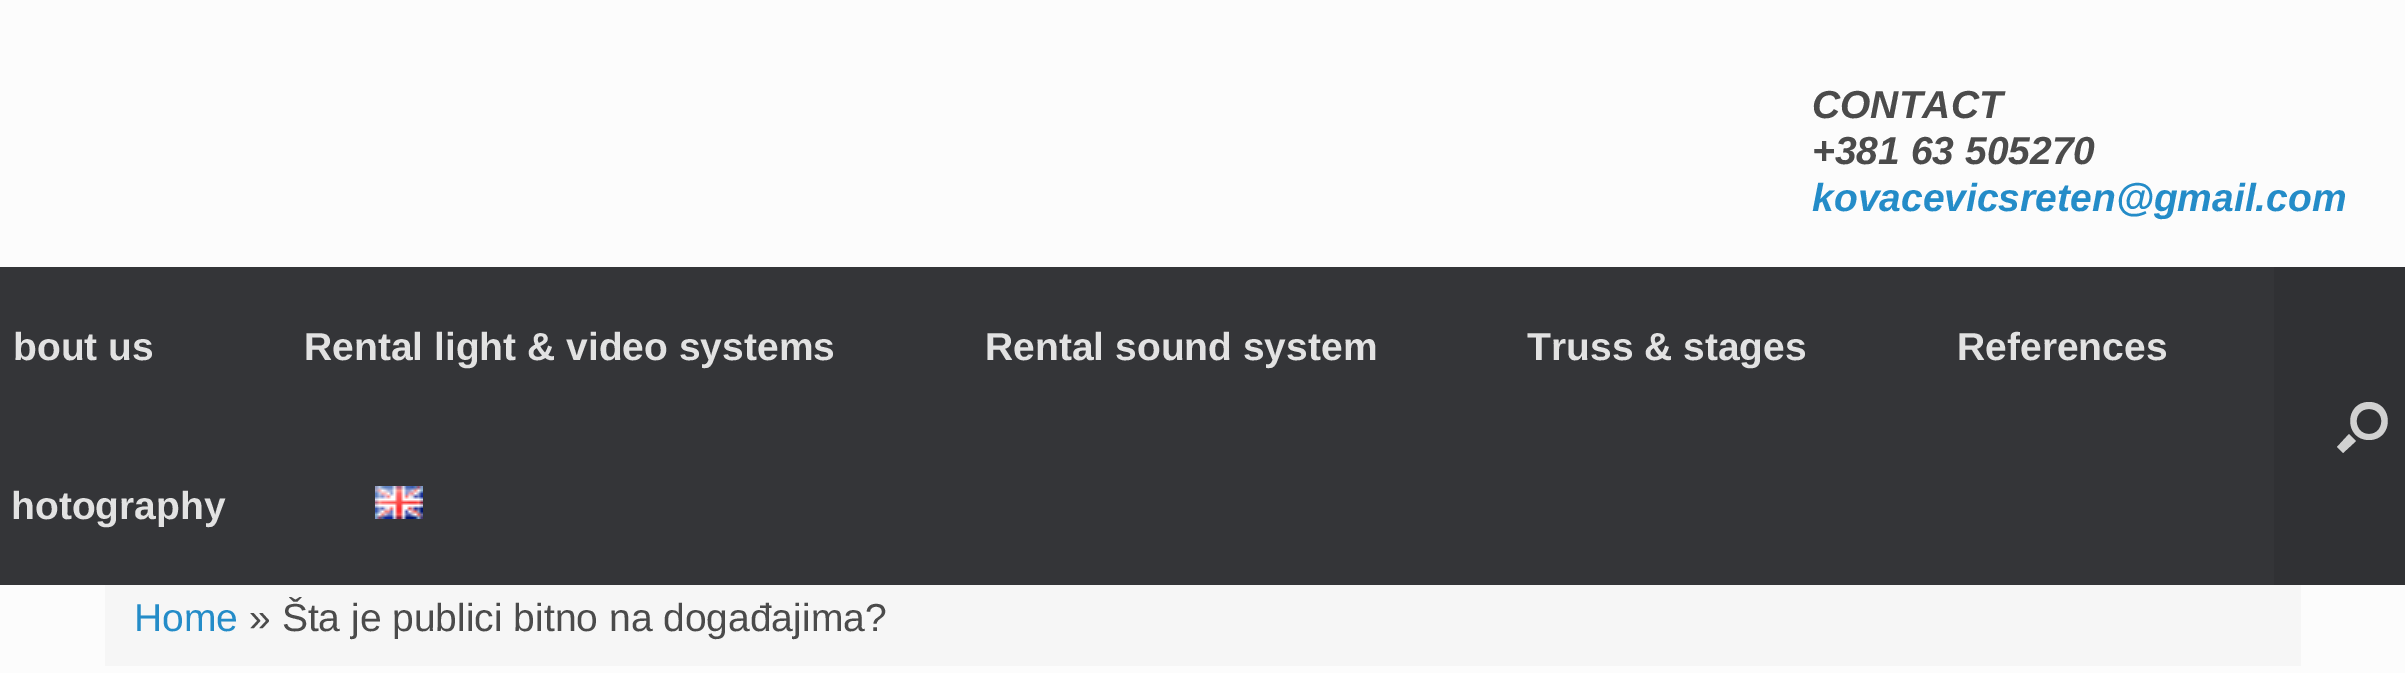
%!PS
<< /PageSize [2405 673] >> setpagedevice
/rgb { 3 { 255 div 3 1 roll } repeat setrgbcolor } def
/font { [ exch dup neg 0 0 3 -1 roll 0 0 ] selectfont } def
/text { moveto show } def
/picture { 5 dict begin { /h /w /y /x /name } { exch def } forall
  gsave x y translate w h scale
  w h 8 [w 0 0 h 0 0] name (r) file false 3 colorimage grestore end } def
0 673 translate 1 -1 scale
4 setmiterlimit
252 252 252 rgb
0 0 2405 673 rectfill
52 53 56 rgb
0 267 2274 318 rectfill
(img_01.rgb) 375 486 48 33 picture
48 49 52 rgb
2274 267 131 318 rectfill
209 209 209 rgb
2369 409 moveto 17 0 16 25 0 25 rcurveto -16 0 -17 -25 0 -25 rcurveto closepath 2369 402 moveto -25 0 -25 38 0 38 rcurveto 25 0 25 -38 0 -38 rcurveto closepath 2349 434 moveto 7 7 rlineto -13 12 rlineto -6 -6 rlineto closepath fill
246 246 246 rgb
105 585 2196 81 rectfill
/LiberationSans-BoldItalic 39 font
75 75 75 rgb
(CONTACT) 1812 118 text
(+381 63 505270) 1812 164 text
36 140 200 rgb
(kovacevicsreten@gmail.com) 1812 211 text
/LiberationSans-Bold 39 font
226 226 226 rgb
(bout us) 13 360 text
(Rental light & video systems) 304 360 text
(Rental sound system) 985 360 text
(Truss & stages) 1527 360 text
(References) 1957 360 text
(hotography) 11 519 text
/LiberationSans-Regular 39 font
36 140 200 rgb
(Home) 134 631 text
75 75 75 rgb
(» Šta je publici bitno na događajima?) 249 631 text
showpage
